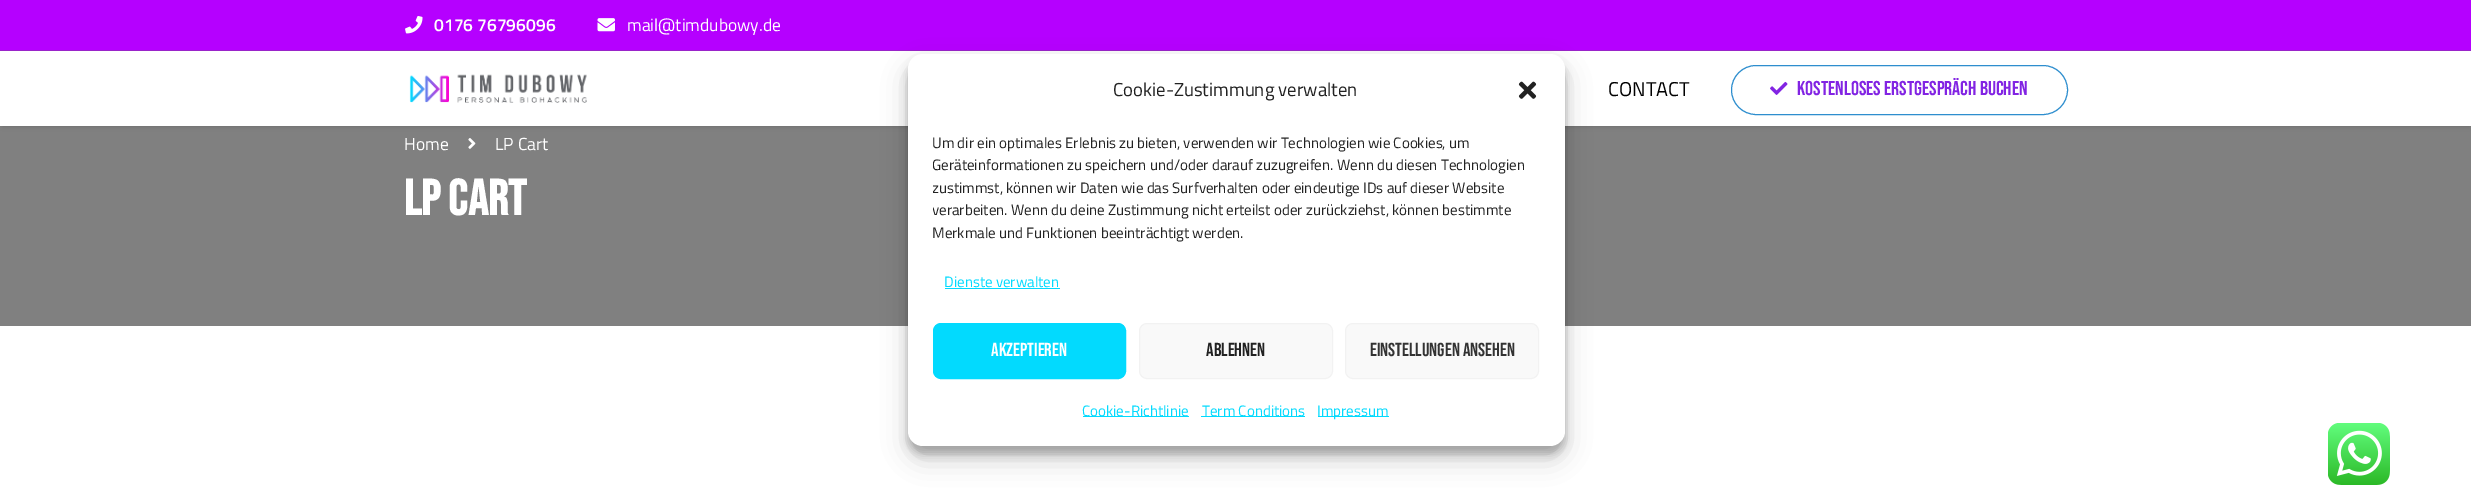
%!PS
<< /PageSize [2471 499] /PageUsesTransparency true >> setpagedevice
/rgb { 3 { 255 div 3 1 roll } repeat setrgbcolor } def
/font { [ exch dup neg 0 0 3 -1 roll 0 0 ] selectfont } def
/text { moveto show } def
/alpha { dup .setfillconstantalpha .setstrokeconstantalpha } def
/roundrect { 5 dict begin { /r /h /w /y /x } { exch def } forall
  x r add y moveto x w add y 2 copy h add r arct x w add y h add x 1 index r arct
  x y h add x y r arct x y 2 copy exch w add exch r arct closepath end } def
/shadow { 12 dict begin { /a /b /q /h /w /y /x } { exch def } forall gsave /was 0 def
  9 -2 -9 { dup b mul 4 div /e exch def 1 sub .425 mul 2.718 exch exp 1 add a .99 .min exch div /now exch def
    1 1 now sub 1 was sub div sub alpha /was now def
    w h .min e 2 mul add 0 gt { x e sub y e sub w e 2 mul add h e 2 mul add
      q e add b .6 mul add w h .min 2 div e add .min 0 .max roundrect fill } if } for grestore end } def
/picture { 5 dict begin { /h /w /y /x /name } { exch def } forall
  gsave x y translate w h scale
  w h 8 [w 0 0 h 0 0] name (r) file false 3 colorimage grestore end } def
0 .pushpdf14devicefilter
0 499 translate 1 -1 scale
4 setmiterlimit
255 255 255 rgb
0 0 2471 499 rectfill
128 128 128 rgb
0 126 2471 200 rectfill
42 42 42 rgb
3 4 2466 121 0 3 0.4 shadow
255 255 255 rgb
0 51 2471 75 rectfill
181 0 255 rgb
0 0 2471 50 rectfill
153 36 201 rgb
0 50 2471 1 rectfill
(img_01.rgb) 405 16 18 18 picture
(img_02.rgb) 597 18 18 14 picture
(img_03.rgb) 409 74 178 29 picture
46 142 206 rgb
1731.5 65.5 336 49 24.5 roundrect stroke
(img_04.rgb) 1770 81 18 14 picture
(img_05.rgb) 468 138 8 11 picture
0 0 0 rgb
908 61 657 393 15 4 0.23 shadow
908 66 657 393 15 12.5 0.19 shadow
255 255 255 rgb
908 54 657 392 15 roundrect fill
(img_06.rgb) 1518 81 19 18 picture
2 218 254 rgb
945 288 115 1 rectfill
933.5 323.5 192 55 7.5 roundrect gsave fill grestore
stroke
249 249 249 rgb
1139.5 323.5 193 55 7.5 roundrect gsave fill grestore
242 242 242 rgb
stroke
249 249 249 rgb
1345.5 323.5 193 55 7.5 roundrect gsave fill grestore
242 242 242 rgb
stroke
2 218 254 rgb
1083 416 106 1 rectfill
1201 416 104 1 rectfill
1318 416 71 1 rectfill
(img_07.rgb) 2328 423 62 62 picture
/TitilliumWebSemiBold-SemiBold 17.5 font
255 255 255 rgb
(0176 76796096) 434 31 text
/TitilliumWeb-Regular 17.5 font
(mail@timdubowy.de) 627 31 text
/TitilliumWeb-Regular 20 font
0 0 0 rgb
(CONTACT) 1608 96 text
/BebasNeue-Regular 20 font
130 36 227 rgb
(KOSTENLOSES ERSTGESPRÄCH BUCHEN) 1797 95 text
/TitilliumWeb-Regular 17.5 font
255 255 255 rgb
(Home) 404 150 text
(LP Cart) 495 150 text
/BebasNeue-Bold 50 font
(LP CART) 404 215 text
/TitilliumWeb-Regular 18.75 font
34 34 34 rgb
(Cookie-Zustimmung verwalten) 1113 96 text
/TitilliumWeb-Regular 15 font
(Um dir ein optimales Erlebnis zu bieten, verwenden wir Technologien wie Cookies, um) 932 148 text
gsave
933 131 607 119 rectclip
(Geräteinformationen zu speichern und/oder darauf zuzugreifen. Wenn du diesen Technologien) 932 170 text
(zustimmst, können wir Daten wie das Surfverhalten oder eindeutige IDs auf dieser Website) 932 193 text
(verarbeiten. Wenn du deine Zustimmung nicht erteilst oder zurückziehst, können bestimmte) 932 215 text
grestore
(Merkmale und Funktionen beeinträchtigt werden.) 932 238 text
2 218 254 rgb
(Dienste verwalten) 944 287 text
/BebasNeue-Regular 18.75 font
255 255 255 rgb
(AKZEPTIEREN) 991 356 text
34 34 34 rgb
(ABLEHNEN) 1206 356 text
51 51 51 rgb
(EINSTELLUNGEN ANSEHEN) 1370 356 text
/TitilliumWeb-Regular 15 font
2 218 254 rgb
(Cookie-Richtlinie) 1082 416 text
(Term Conditions) 1202 416 text
(Impressum) 1317 416 text
.poppdf14devicefilter showpage
